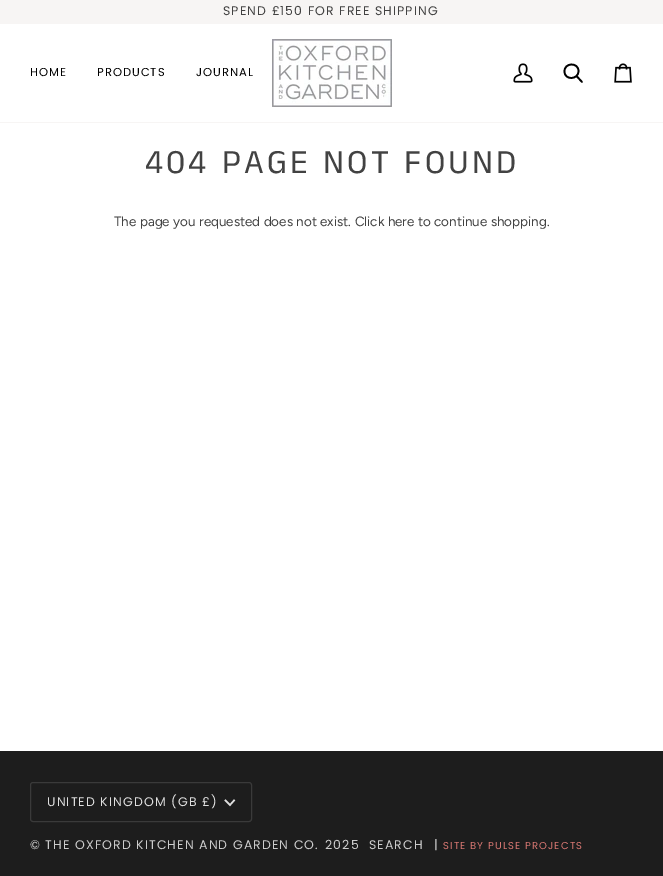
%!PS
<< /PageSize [663 876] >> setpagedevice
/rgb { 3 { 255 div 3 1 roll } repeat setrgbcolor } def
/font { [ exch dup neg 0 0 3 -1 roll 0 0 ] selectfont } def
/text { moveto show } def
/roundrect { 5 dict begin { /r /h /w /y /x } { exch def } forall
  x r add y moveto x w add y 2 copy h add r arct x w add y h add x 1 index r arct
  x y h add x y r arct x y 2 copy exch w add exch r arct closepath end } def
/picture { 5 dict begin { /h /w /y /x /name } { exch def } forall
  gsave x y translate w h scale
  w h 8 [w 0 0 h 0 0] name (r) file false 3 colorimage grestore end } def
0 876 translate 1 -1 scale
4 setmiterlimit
255 255 255 rgb
0 0 663 876 rectfill
247 245 244 rgb
0 0 663 24 rectfill
0 122 663 1 rectfill
(img_01.rgb) 272 39 120 68 picture
(img_02.rgb) 513 63 20 20 picture
0 0 0 rgb
1.7 setlinewidth
1 setlinecap
1 setlinejoin
578.5 71 moveto 0 9 -14 9.5 -14 0.5 rcurveto -0.5 -9 14 -9.5 14 -0.5 rcurveto closepath 582 82 moveto -5.5 -6 rlineto closepath stroke
(img_03.rgb) 614 63 18 20 picture
29 29 29 rgb
0 751 663 125 rectfill
58 58 58 rgb
1 setlinewidth
0 setlinecap
0 setlinejoin
30.5 782.5 221 39 2.5 roundrect stroke
223 223 223 rgb
1.5 setlinewidth
2 setlinecap
225.5 800.5 moveto 4.5 4.5 rlineto 4 -4.5 rlineto stroke
/Poppins-Regular 12.5 font
66 66 66 rgb
223 15 moveto 1.1 0 (SPEND £150 FOR FREE SHIPPING) ashow
/Poppins-Regular 11.5 font
0 0 0 rgb
30 76 moveto 1 0 (HOME) ashow
97 76 moveto 1 0 (PRODUCTS) ashow
196 76 moveto 1 0 (JOURNAL) ashow
/AnekTamil-Regular 34 font
66 66 66 rgb
145 173 moveto 3.1 0 (404 PAGE NOT FOUND) ashow
/Figtree-Regular 13.5 font
(The page you requested does not exist. Click here to continue shopping.) 114 226 text
/Poppins-Regular 12.5 font
223 223 223 rgb
47 806 moveto 1.1 0 (UNITED KINGDOM \(GB £\)) ashow
204 204 204 rgb
30 849 moveto 1.1 0 (© THE OXFORD KITCHEN AND GARDEN CO.) ashow
325 849 moveto 1.1 0 (2025) ashow
369 849 moveto 1.1 0 (SEARCH) ashow
434 849 moveto 1.1 0 (|) ashow
/Poppins-Regular 10 font
214 118 113 rgb
443 849 moveto 1.1 0 (SITE BY PULSE PROJECTS) ashow
showpage
